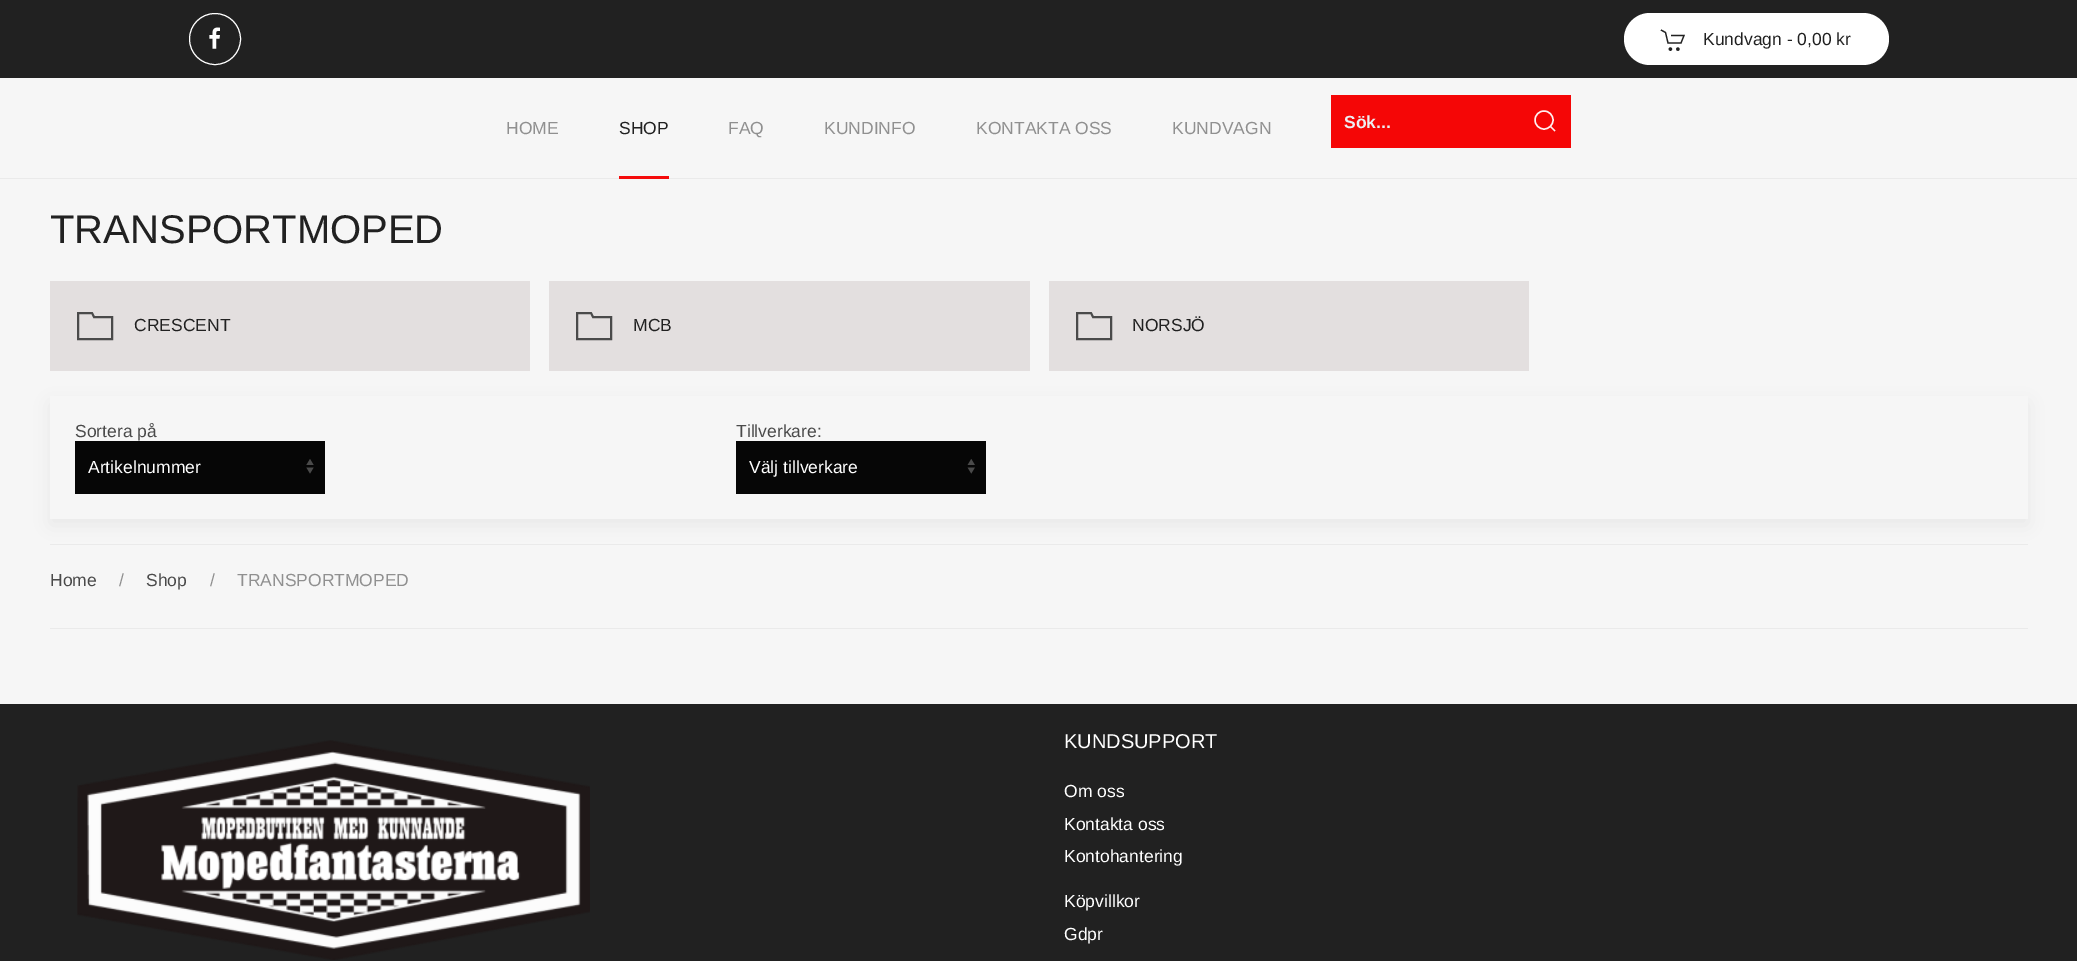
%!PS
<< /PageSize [2077 961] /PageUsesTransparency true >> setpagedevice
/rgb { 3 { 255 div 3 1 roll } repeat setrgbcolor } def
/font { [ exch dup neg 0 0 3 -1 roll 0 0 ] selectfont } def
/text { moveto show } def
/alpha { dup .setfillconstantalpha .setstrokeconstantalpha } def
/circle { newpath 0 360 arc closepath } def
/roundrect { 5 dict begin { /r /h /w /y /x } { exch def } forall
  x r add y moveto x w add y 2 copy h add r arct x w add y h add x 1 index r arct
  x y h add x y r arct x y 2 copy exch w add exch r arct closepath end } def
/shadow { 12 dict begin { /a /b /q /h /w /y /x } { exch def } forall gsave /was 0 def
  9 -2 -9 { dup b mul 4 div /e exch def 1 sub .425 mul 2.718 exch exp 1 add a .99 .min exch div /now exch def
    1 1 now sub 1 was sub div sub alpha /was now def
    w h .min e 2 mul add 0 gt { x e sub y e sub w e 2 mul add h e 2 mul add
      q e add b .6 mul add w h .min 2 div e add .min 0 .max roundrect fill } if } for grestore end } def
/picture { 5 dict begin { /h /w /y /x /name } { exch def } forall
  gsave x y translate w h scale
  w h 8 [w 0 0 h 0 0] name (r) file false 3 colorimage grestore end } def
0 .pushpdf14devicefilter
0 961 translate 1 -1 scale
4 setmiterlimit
246 246 246 rgb
0 0 2077 961 rectfill
33 33 33 rgb
0 0 2077 78 rectfill
255 255 255 rgb
215 39 25.5 circle stroke
(img_01.rgb) 209 27 11 22 picture
1624 13 265 52 26 roundrect fill
33 33 33 rgb
1.2 setlinewidth
1661 30 moveto 4.5 2.5 rlineto 2.5 10.5 rlineto 13 0 rlineto 3 -7.5 rlineto -13 0 rlineto stroke
1670.4 49.1 1.7 circle fill
1677.9 49.1 1.7 circle fill
234 234 234 rgb
0 178 2077 1 rectfill
245 11 11 rgb
619 176 50 3 rectfill
245 6 6 rgb
1331 95 240 53 rectfill
255 240 240 rgb
1.4 setlinewidth
1544 120 9 circle stroke
1550 126 moveto 5 5 rlineto closepath stroke
227 223 223 rgb
50 281 480 90 rectfill
74 74 74 rgb
2 setlinewidth
94 317 moveto -2 -4 rlineto -14 0 rlineto 0 26 rlineto 34 0 rlineto 0 -22 rlineto closepath stroke
227 223 223 rgb
549 281 481 90 rectfill
74 74 74 rgb
593 317 moveto -2 -4 rlineto -14 0 rlineto 0 26 rlineto 34 0 rlineto 0 -22 rlineto closepath stroke
227 223 223 rgb
1049 281 480 90 rectfill
74 74 74 rgb
1093 317 moveto -2 -4 rlineto -14 0 rlineto 0 26 rlineto 34 0 rlineto 0 -22 rlineto closepath stroke
234 234 234 rgb
50 544 1978 1 rectfill
0 0 0 rgb
50 403 1978 122 0 9.5 0.06 shadow
246 246 246 rgb
50 396 1978 123 rectfill
6 6 6 rgb
75 441 250 53 rectfill
(img_02.rgb) 306 459 8 15 picture
736 441 250 53 rectfill
(img_03.rgb) 967 459 8 15 picture
234 234 234 rgb
50 628 1978 1 rectfill
33 33 33 rgb
0 704 2077 257 rectfill
(img_04.rgb) 77 740 513 220 picture
/LiberationSans-Regular 17.5 font
(Kundvagn - 0,00 kr) 1703 45 text
144 144 144 rgb
(HOME) 506 134 text
33 33 33 rgb
(SHOP) 619 134 text
144 144 144 rgb
(FAQ) 728 134 text
(KUNDINFO) 824 134 text
(KONTAKTA OSS) 976 134 text
(KUNDVAGN) 1172 134 text
/LiberationSans-Bold 17.5 font
236 238 242 rgb
(Sök...) 1344 128 text
/LiberationSans-Regular 40 font
33 33 33 rgb
(TRANSPORTMOPED) 50 243 text
/LiberationSans-Regular 17.5 font
(CRESCENT) 134 331 text
(MCB) 633 331 text
(NORSJÖ) 1132 331 text
74 74 74 rgb
(Sortera på) 75 437 text
255 255 255 rgb
(Artikelnummer) 88 473 text
74 74 74 rgb
(Tillverkare:) 736 437 text
255 255 255 rgb
(Välj tillverkare) 749 473 text
74 74 74 rgb
(Home) 50 586 text
144 144 144 rgb
(/) 119 586 text
74 74 74 rgb
(Shop) 146 586 text
144 144 144 rgb
(/) 210 586 text
(TRANSPORTMOPED) 237 586 text
/LiberationSans-Regular 20 font
255 255 255 rgb
(KUNDSUPPORT) 1064 748 text
/LiberationSans-Regular 17.5 font
(Om oss) 1064 797 text
(Kontakta oss) 1064 830 text
(Kontohantering) 1064 862 text
(Köpvillkor) 1064 907 text
(Gdpr) 1064 940 text
.poppdf14devicefilter showpage
